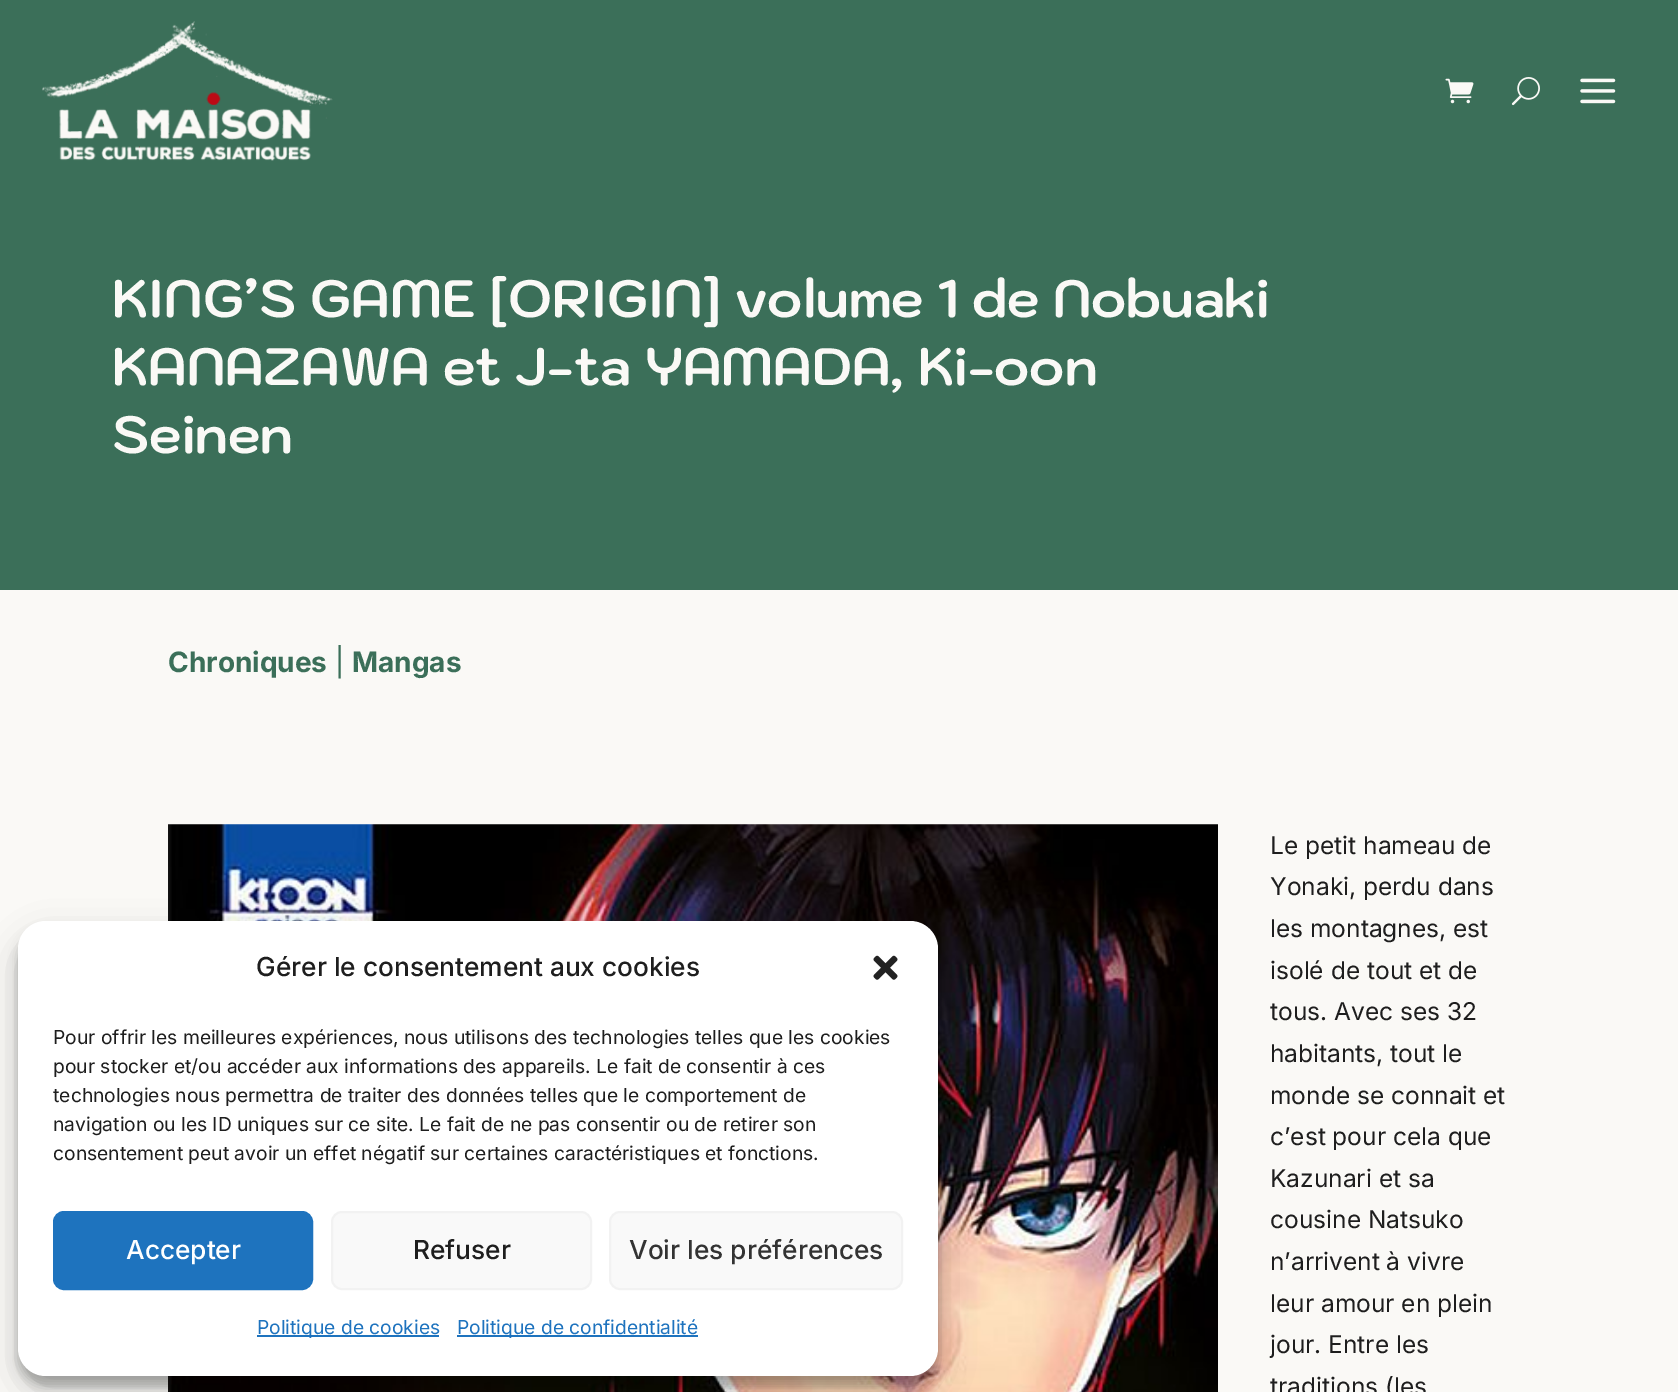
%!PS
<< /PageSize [1678 1392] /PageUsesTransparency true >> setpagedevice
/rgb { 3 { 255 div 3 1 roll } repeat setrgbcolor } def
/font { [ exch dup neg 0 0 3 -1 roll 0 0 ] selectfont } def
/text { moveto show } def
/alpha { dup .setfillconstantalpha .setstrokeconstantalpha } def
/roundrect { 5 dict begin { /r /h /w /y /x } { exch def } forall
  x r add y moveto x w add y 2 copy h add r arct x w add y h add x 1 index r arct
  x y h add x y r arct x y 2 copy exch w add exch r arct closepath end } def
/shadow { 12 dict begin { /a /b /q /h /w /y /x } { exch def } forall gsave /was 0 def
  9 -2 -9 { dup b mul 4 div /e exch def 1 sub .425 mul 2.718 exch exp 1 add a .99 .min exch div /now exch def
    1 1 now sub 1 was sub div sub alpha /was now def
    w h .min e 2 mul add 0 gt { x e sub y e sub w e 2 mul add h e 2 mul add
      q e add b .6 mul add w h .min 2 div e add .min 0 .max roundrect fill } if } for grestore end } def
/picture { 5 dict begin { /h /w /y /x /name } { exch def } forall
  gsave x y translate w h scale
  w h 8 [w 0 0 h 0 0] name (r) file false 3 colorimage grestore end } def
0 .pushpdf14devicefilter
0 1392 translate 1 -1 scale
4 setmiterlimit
250 249 246 rgb
0 0 1678 1392 rectfill
59 111 89 rgb
0 0 1678 590 rectfill
(img_01.rgb) 42 21 291 140 picture
(img_02.rgb) 1445 78 29 26 picture
(img_03.rgb) 1511 77 29 29 picture
(img_04.rgb) 1580 78 36 26 picture
(img_05.rgb) 168 824 1050 568 picture
0 0 0 rgb
18 931 920 455 28 5 0.23 shadow
18 938 920 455 28 17.5 0.19 shadow
255 255 255 rgb
18 921 920 455 28 roundrect fill
(img_06.rgb) 873 955 25 25 picture
30 115 190 rgb
54 1212 258 77 10 roundrect gsave fill grestore
2 setlinewidth
stroke
249 249 249 rgb
332 1212 259 77 10 roundrect gsave fill grestore
242 242 242 rgb
stroke
249 249 249 rgb
610 1212 292 77 10 roundrect gsave fill grestore
242 242 242 rgb
stroke
30 115 190 rgb
257 1335 182 2 rectfill
457 1335 241 2 rectfill
/Kodchasan-Bold 52.5 font
250 249 246 rgb
(KING’S GAME [ORIGIN] volume 1 de Nobuaki) 112 317 text
(KANAZAWA et J-ta YAMADA, Ki-oon) 112 385 text
(Seinen) 112 453 text
/Inter-Bold 28 font
59 111 89 rgb
(Chroniques) 168 672 text
/Inter-Regular 28 font
(|) 335 672 text
/Inter-Bold 28 font
(Mangas) 352 672 text
/Inter-Regular 24.5 font
30 30 30 rgb
(Le petit hameau de) 1270 854 text
(Yonaki, perdu dans) 1270 895 text
(les montagnes, est) 1270 937 text
(isolé de tout et de) 1270 979 text
(tous. Avec ses 32) 1270 1020 text
(habitants, tout le) 1270 1062 text
(monde se connait et) 1270 1104 text
(c’est pour cela que) 1270 1145 text
(Kazunari et sa) 1270 1187 text
(cousine Natsuko) 1270 1228 text
(n’arrivent à vivre) 1270 1270 text
(leur amour en plein) 1270 1312 text
(jour. Entre les) 1270 1353 text
(traditions \(les) 1270 1395 text
/Inter-Medium 26.25 font
(Gérer le consentement aux cookies) 256 976 text
/Inter-Regular 19.25 font
(Pour offrir les meilleures expériences, nous utilisons des technologies telles que les cookies) 53 1044 text
(pour stocker et/ou accéder aux informations des appareils. Le fait de consentir à ces) 53 1073 text
(technologies nous permettra de traiter des données telles que le comportement de) 53 1102 text
(navigation ou les ID uniques sur ce site. Le fait de ne pas consentir ou de retirer son) 53 1131 text
(consentement peut avoir un effet négatif sur certaines caractéristiques et fonctions.) 53 1160 text
/Inter-Medium 26.25 font
255 255 255 rgb
(Accepter) 126 1259 text
30 30 30 rgb
(Refuser) 413 1259 text
51 51 51 rgb
(Voir les préférences) 629 1259 text
/Inter-Regular 19.25 font
30 115 190 rgb
(Politique de cookies) 257 1334 text
(Politique de confidentialité) 457 1334 text
.poppdf14devicefilter showpage
